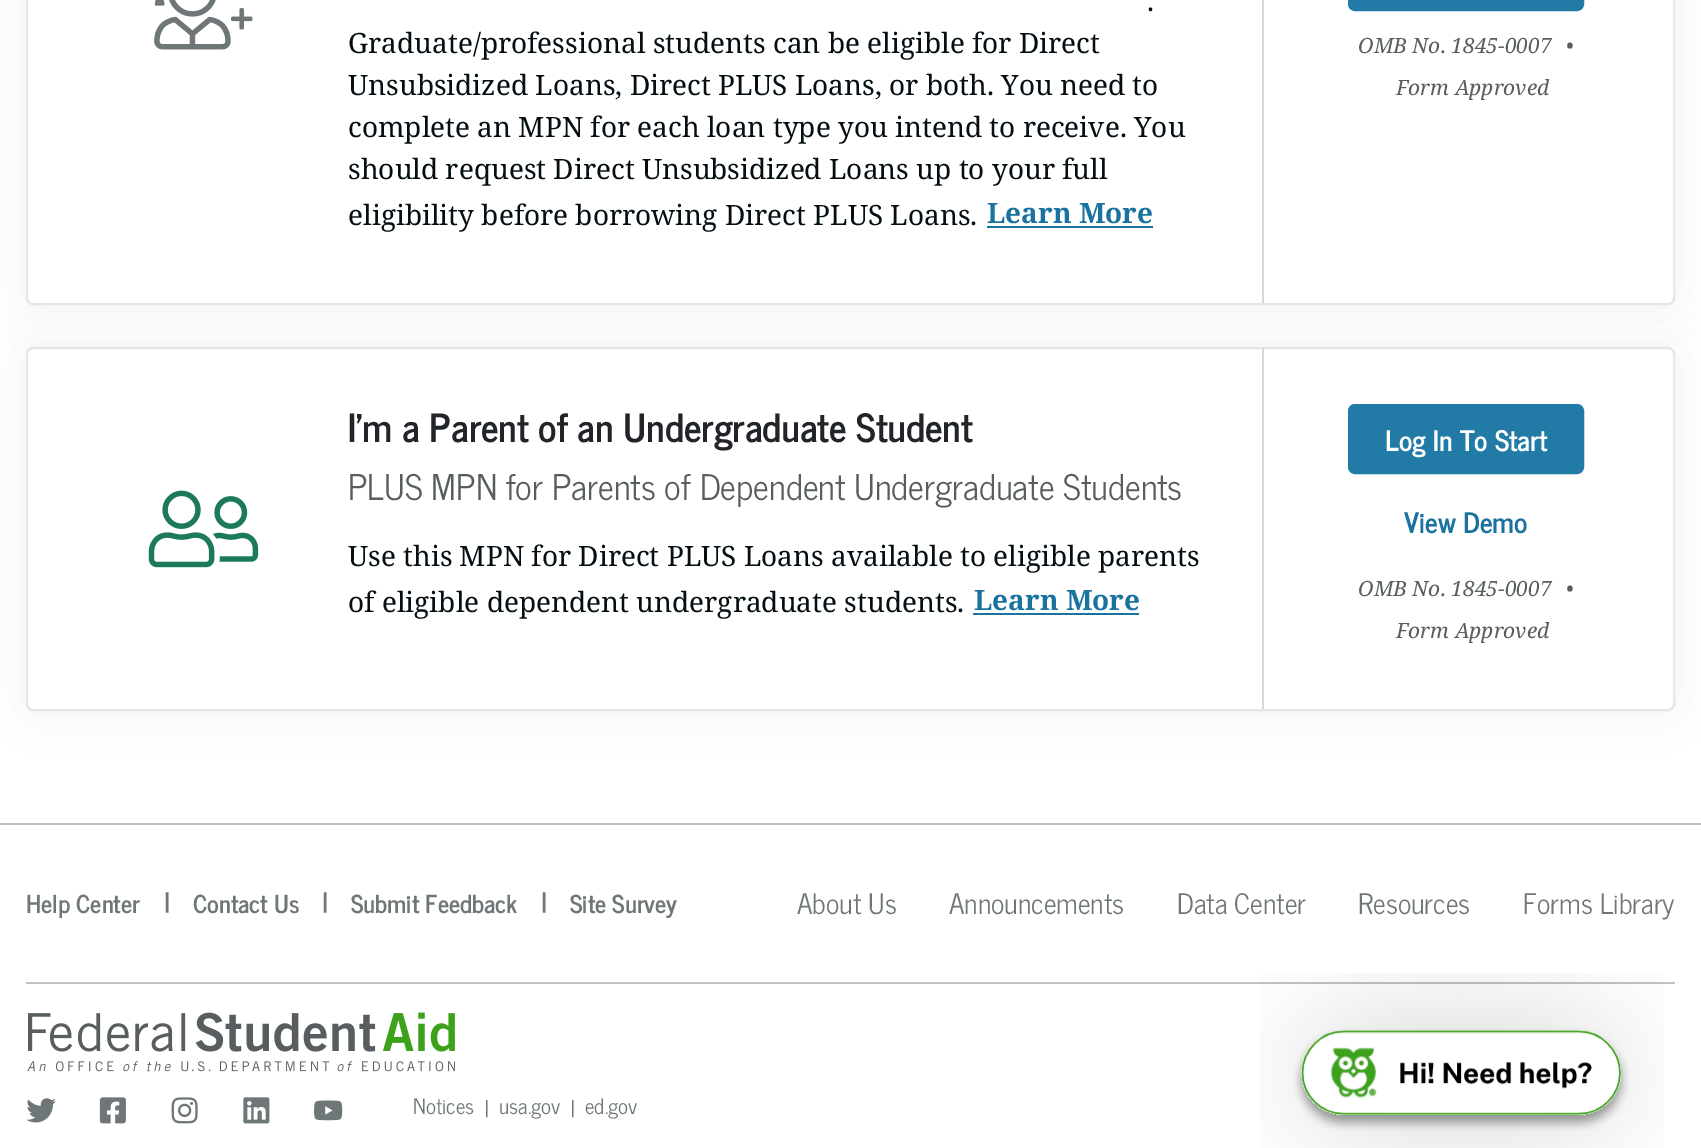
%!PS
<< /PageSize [1701 1148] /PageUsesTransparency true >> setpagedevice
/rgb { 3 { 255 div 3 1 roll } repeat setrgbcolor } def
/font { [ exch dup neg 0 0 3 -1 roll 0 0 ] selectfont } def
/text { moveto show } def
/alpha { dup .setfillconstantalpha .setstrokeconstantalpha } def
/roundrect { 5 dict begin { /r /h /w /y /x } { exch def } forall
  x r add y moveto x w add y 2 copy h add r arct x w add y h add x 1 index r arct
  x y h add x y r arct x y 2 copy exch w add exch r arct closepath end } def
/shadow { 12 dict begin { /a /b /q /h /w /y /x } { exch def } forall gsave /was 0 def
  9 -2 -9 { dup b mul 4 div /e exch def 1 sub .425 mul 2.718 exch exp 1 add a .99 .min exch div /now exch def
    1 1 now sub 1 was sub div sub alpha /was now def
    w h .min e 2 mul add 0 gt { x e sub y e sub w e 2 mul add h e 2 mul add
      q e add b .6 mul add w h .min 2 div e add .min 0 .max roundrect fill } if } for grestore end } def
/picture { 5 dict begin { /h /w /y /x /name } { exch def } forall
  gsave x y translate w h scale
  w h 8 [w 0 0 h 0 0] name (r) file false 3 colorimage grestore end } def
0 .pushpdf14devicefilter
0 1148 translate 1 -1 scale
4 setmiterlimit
255 255 255 rgb
0 0 1701 1148 rectfill
0 0 0 rgb
26 -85 1649 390 7 26 0.05 shadow
255 255 255 rgb
27 -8 1647 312 6 roundrect gsave fill grestore
229 230 231 rgb
2 setlinewidth
stroke
(img_01.rgb) 154 0 77 50 picture
(img_02.rgb) 231 8 22 22 picture
26 114 159 rgb
987 226 166 2 rectfill
216 216 216 rgb
1262 0 2 303 rectfill
34 122 167 rgb
1349 -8 234 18 6 roundrect gsave fill grestore
stroke
0 0 0 rgb
26 347 1649 364 7 26 0.05 shadow
255 255 255 rgb
27 348 1647 362 6 roundrect gsave fill grestore
229 230 231 rgb
stroke
(img_03.rgb) 148 490 111 78 picture
26 114 159 rgb
973 613 166 2 rectfill
216 216 216 rgb
1262 348 2 361 rectfill
34 122 167 rgb
1349 405 234 68 6 roundrect gsave fill grestore
stroke
189 193 194 rgb
0 823 1701 2 rectfill
26 982 1649 2 rectfill
(img_04.rgb) 27 1012 428 60 picture
(img_05.rgb) 26 1098 30 25 picture
(img_06.rgb) 99 1097 27 27 picture
(img_07.rgb) 171 1097 27 27 picture
(img_08.rgb) 243 1097 27 27 picture
(img_09.rgb) 314 1100 29 21 picture
(img_10.rgb) 1260 973 404 175 picture
/NotoSerif-Regular 28 font
4 14 19 rgb
(.) 1147 11 text
(Graduate/professional students can be eligible for Direct) 348 53 text
(Unsubsidized Loans, Direct PLUS Loans, or both. You need to) 348 95 text
(complete an MPN for each loan type you intend to receive. You) 348 137 text
(should request Direct Unsubsidized Loans up to your full) 348 179 text
(eligibility before borrowing Direct PLUS Loans.) 348 225 text
/NotoSerif-Bold 28 font
26 114 159 rgb
(Learn More) 987 223 text
/NotoSerif-Italic 21 font
88 94 96 rgb
(OMB No. 1845-0007) 1358 53 text
(•) 1566 53 text
(Form Approved) 1396 95 text
/NewsCycle-Bold 38.5 font
33 37 41 rgb
(I’m a Parent of an Undergraduate Student) 348 442 text
/NewsCycle-Regular 35 font
88 94 96 rgb
(PLUS MPN for Parents of Dependent Undergraduate Students) 348 500 text
/NotoSerif-Regular 28 font
4 14 19 rgb
(Use this MPN for Direct PLUS Loans available to eligible parents) 348 566 text
(of eligible dependent undergraduate students.) 348 612 text
/NotoSerif-Bold 28 font
26 114 159 rgb
(Learn More) 974 610 text
/NewsCycle-Bold 28 font
255 255 255 rgb
(Log In To Start) 1385 451 text
26 114 159 rgb
(View Demo) 1404 533 text
/NotoSerif-Italic 21 font
88 94 96 rgb
(OMB No. 1845-0007) 1358 596 text
(•) 1566 596 text
(Form Approved) 1396 638 text
/NewsCycle-Bold 24.5 font
110 118 120 rgb
(Help Center) 26 913 text
(|) 165 911 text
(Contact Us) 193 913 text
(|) 323 911 text
(Submit Feedback) 351 913 text
(|) 542 911 text
(Site Survey) 570 913 text
/NewsCycle-Regular 28 font
(About Us) 797 914 text
(Announcements) 949 914 text
(Data Center) 1177 914 text
(Resources) 1358 914 text
(Forms Library) 1523 914 text
/NewsCycle-Regular 21 font
(Notices) 413 1114 text
(|) 485 1116 text
(usa.gov) 499 1114 text
(|) 571 1116 text
(ed.gov) 585 1114 text
.poppdf14devicefilter showpage
